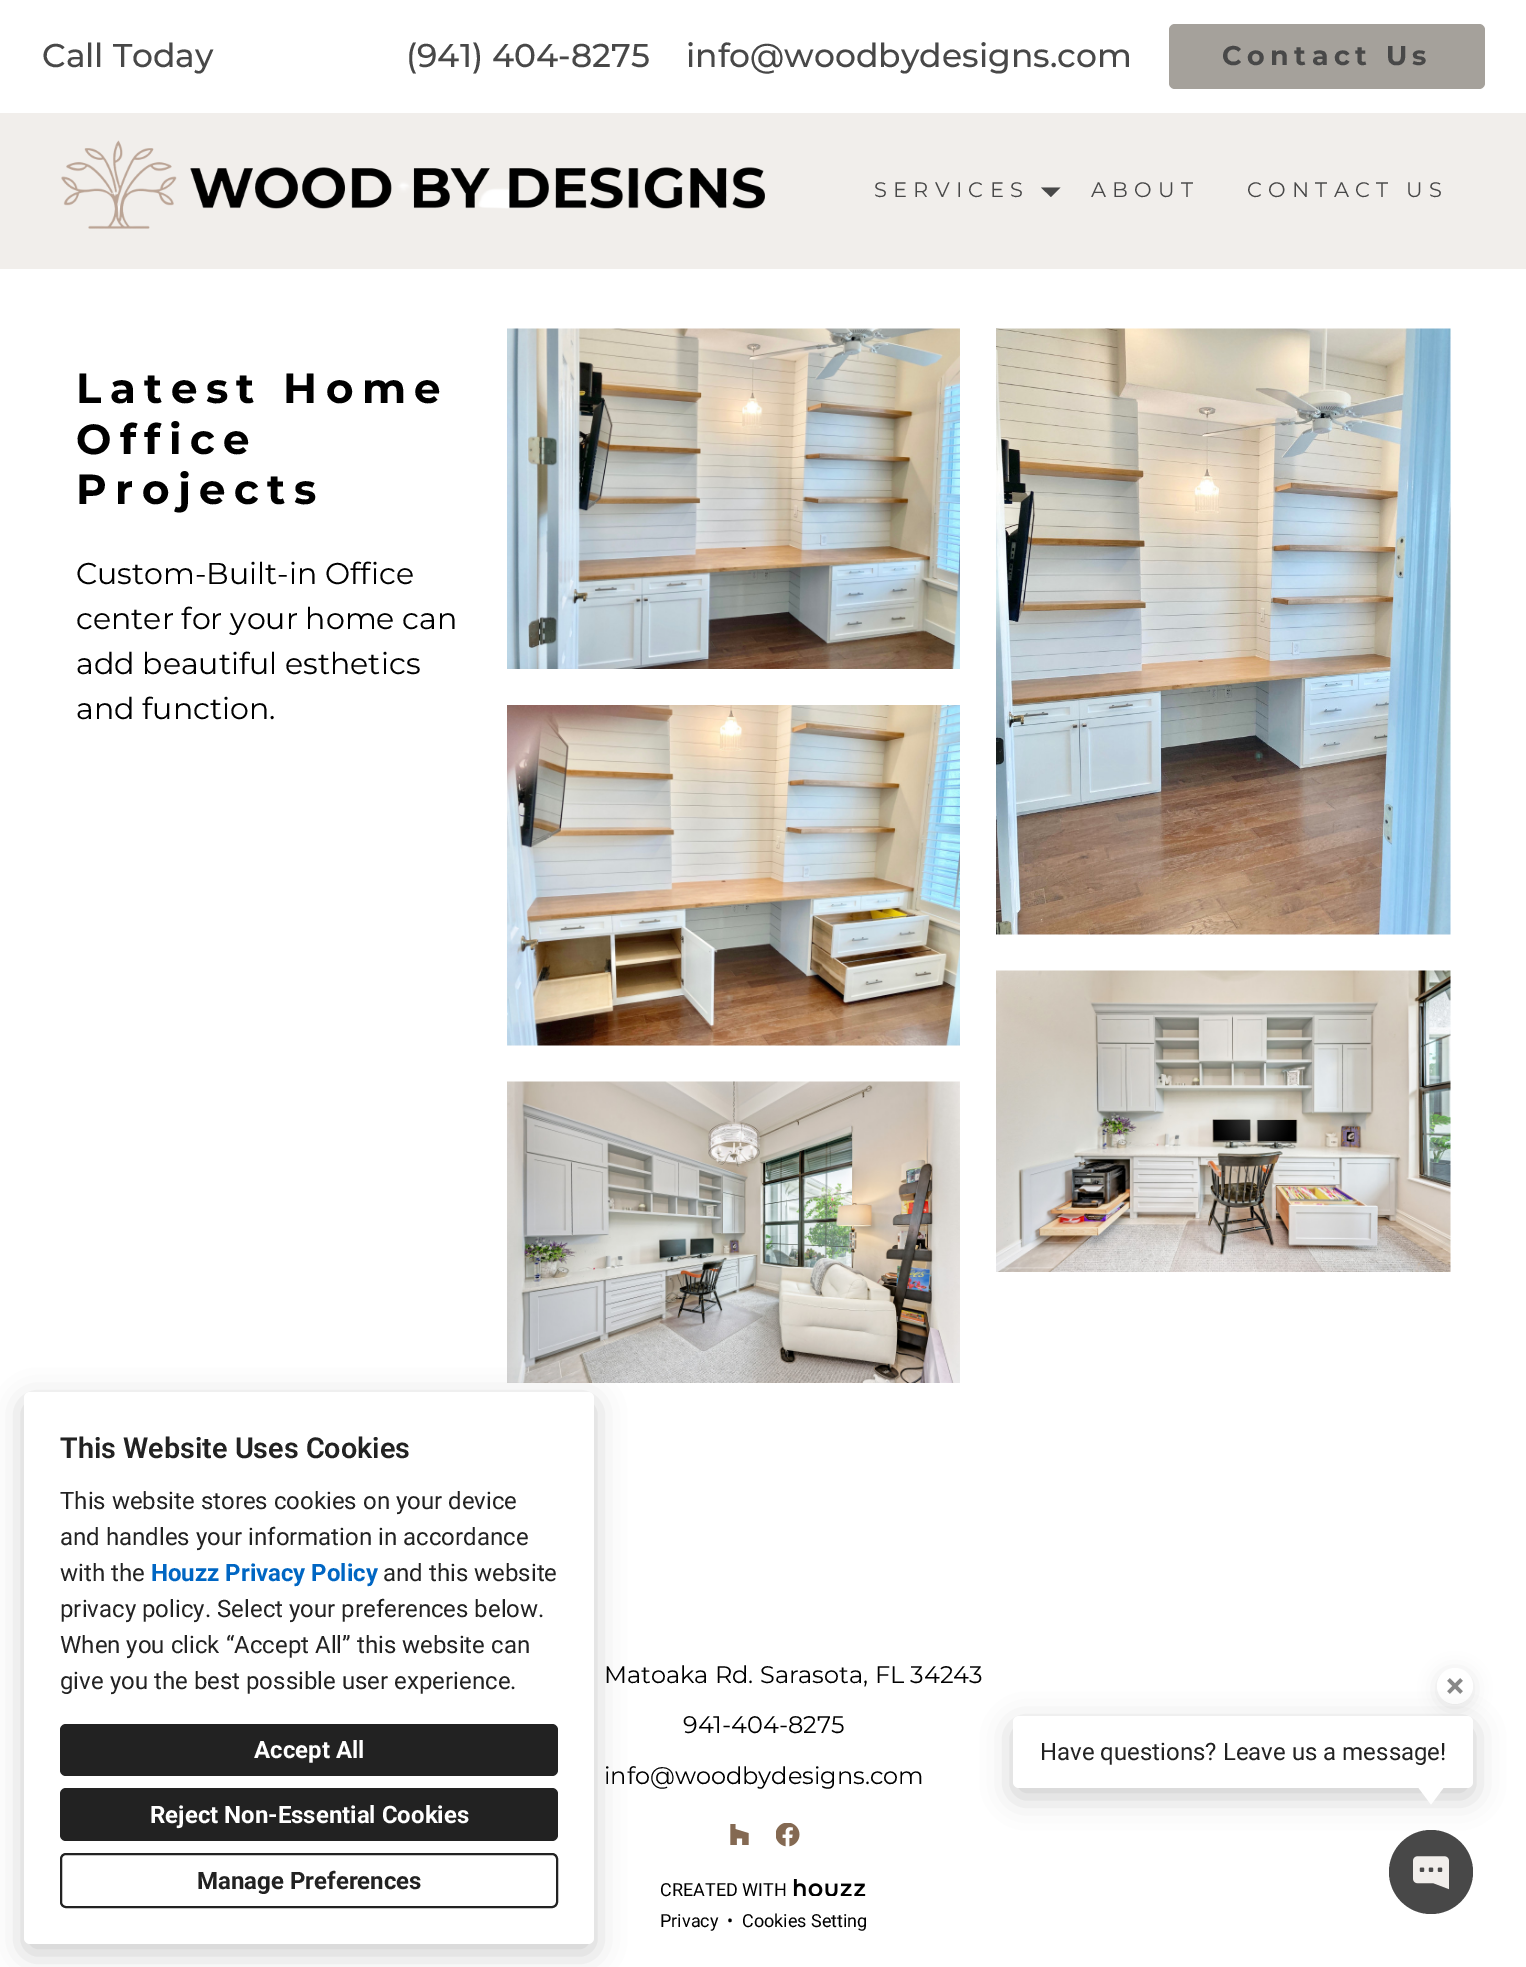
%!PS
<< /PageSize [1526 1967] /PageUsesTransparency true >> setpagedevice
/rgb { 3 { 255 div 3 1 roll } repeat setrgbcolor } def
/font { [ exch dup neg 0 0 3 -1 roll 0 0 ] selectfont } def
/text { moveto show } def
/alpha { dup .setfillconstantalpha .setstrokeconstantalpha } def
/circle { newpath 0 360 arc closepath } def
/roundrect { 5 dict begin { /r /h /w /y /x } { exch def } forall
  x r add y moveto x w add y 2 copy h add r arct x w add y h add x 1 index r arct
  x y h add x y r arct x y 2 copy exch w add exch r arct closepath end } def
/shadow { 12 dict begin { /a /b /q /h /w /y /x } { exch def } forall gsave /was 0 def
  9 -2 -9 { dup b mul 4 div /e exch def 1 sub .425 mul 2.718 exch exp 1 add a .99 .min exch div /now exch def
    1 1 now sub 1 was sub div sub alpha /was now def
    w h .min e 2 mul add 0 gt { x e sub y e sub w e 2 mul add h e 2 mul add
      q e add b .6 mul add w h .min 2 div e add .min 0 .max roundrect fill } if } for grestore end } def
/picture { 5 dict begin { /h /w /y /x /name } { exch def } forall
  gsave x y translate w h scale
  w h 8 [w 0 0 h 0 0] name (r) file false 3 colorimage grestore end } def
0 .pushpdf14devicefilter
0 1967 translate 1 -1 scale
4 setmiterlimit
255 255 255 rgb
0 0 1526 1967 rectfill
165 161 155 rgb
1169 24 316 65 6 roundrect fill
241 238 235 rgb
0 113 1526 156 rectfill
(img_01.rgb) 61 140 704 89 picture
72 72 72 rgb
1051 197 moveto -10 -9.5 rlineto 19.5 0 rlineto closepath fill
(img_02.rgb) 507 328 453 341 picture
(img_03.rgb) 507 705 453 341 picture
(img_04.rgb) 507 1081 453 302 picture
(img_05.rgb) 996 328 455 607 picture
(img_06.rgb) 996 970 455 302 picture
0 0 0 rgb
1437 1671 36 36 18 9 0.1 shadow
255 255 255 rgb
1455 1686 18 circle fill
(img_07.rgb) 1447 1678 16 16 picture
0 0 0 rgb
1013 1725 460 72 6 15 0.2 shadow
255 255 255 rgb
1013 1716 460 72 6 roundrect fill
1417.5 1786.5 moveto 27 0 rlineto -13.5 18 rlineto closepath fill
72 72 72 rgb
1431 1872 42 circle fill
(img_08.rgb) 1413 1856 36 34 picture
(img_09.rgb) 730 1824 19 21 picture
(img_10.rgb) 776 1823 24 24 picture
(img_11.rgb) 793 1879 73 17 picture
0 0 0 rgb
24 1401 570 552 6 15 0.2 shadow
255 255 255 rgb
24 1392 570 552 6 roundrect fill
34 34 34 rgb
60 1724 498 52 6 roundrect fill
60 1788 498 53 6 roundrect fill
2 setlinewidth
61 1854 496 53 5 roundrect stroke
/Montserrat-Medium 33 font
72 72 72 rgb
(Call Today) 42 67 text
(\(941\) 404-8275) 406 67 text
(info@woodbydesigns.com) 686 67 text
/Montserrat-Bold 27 font
1222 65 moveto 5.5 0 (Contact Us) ashow
/Montserrat-Regular 21 font
874 197 moveto 6.25 0 (SERVICES) ashow
1091 197 moveto 6.25 0 (ABOUT) ashow
1247 197 moveto 6.25 0 (CONTACT US) ashow
/Montserrat-Bold 42 font
0 0 0 rgb
76 403 moveto 8.4 0 (Latest Home) ashow
76 454 moveto 8.4 0 (Office) ashow
76 504 moveto 8.4 0 (Projects) ashow
/Montserrat-Regular 30 font
(Custom-Built-in Office) 76 584 text
(center for your home can) 76 629 text
(add beautiful esthetics) 76 674 text
(and function.) 76 719 text
/Montserrat-Regular 24 font
(Matoaka Rd. Sarasota, FL 34243) 604 1683 text
(941-404-8275) 683 1733 text
(info@woodbydesigns.com) 604 1784 text
/Roboto-Regular 24 font
34 34 34 rgb
(Have questions? Leave us a message!) 1040 1760 text
/Roboto-Regular 18 font
0 0 0 rgb
(CREATED WITH) 660 1896 text
(Privacy) 660 1927 text
(•) 727 1927 text
(Cookies Setting) 742 1927 text
/Roboto-SemiBold 28.75 font
34 34 34 rgb
(This Website Uses Cookies) 60 1458 text
/Roboto-Regular 24 font
(This website stores cookies on your device) 60 1509 text
(and handles your information in accordance) 60 1545 text
(with the) 60 1581 text
/Roboto-Bold 24 font
0 102 195 rgb
(Houzz Privacy Policy) 151 1581 text
/Roboto-Regular 24 font
34 34 34 rgb
(and this website) 383 1581 text
(privacy policy. Select your preferences below.) 60 1617 text
(When you click “Accept All” this website can) 60 1653 text
(give you the best possible user experience.) 60 1689 text
/Roboto-Bold 24 font
255 255 255 rgb
(Accept All) 254 1758 text
(Reject Non-Essential Cookies) 150 1823 text
34 34 34 rgb
(Manage Preferences) 197 1889 text
.poppdf14devicefilter showpage
